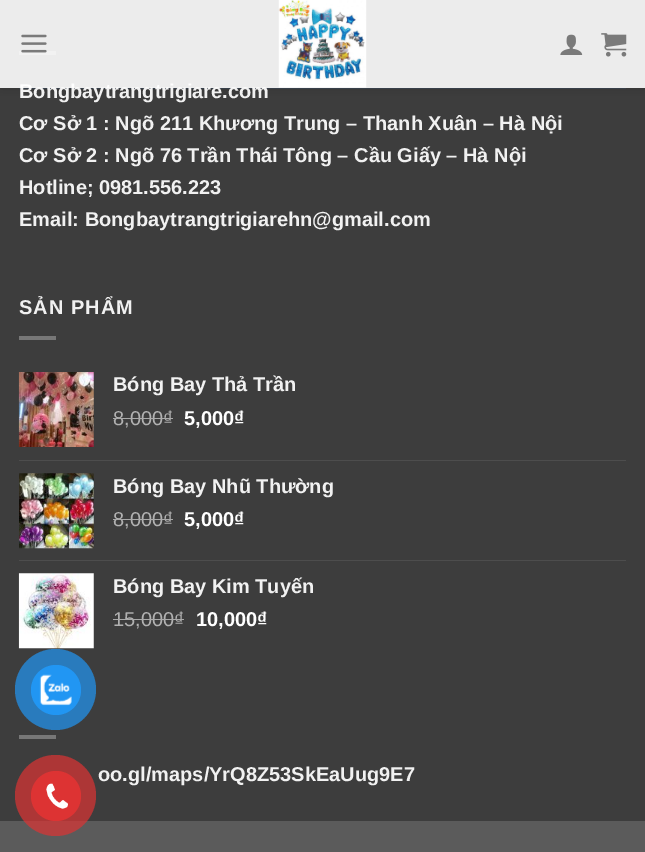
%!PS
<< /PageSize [645 852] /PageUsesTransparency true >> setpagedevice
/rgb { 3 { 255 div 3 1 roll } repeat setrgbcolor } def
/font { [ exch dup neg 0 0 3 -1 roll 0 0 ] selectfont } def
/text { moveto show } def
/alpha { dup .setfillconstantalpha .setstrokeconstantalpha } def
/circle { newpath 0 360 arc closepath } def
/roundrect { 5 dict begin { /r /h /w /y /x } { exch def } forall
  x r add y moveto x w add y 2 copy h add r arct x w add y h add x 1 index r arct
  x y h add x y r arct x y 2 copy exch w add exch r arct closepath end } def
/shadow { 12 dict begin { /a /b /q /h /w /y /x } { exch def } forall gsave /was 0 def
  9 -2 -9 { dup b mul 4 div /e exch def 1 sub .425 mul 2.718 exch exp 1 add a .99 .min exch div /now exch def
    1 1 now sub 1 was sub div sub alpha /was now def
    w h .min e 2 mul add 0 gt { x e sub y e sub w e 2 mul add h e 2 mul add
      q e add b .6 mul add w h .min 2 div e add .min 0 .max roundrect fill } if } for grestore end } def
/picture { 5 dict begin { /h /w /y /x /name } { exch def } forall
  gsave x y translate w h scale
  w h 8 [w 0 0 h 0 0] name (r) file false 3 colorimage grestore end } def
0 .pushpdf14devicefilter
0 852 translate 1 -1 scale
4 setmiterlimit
61 61 61 rgb
0 0 645 852 rectfill
119 119 119 rgb
19 51 37 4 rectfill
gsave
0 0 moveto 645 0 rlineto 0 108 rlineto -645 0 rlineto closepath 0 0 moveto 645 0 rlineto 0 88 rlineto -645 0 rlineto closepath eoclip newpath
0 0 0 rgb
1 1 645 88 0 6 0.15 shadow
grestore
0.1 alpha
50 129 220 rgb
19 88 607 1 rectfill
1 alpha
119 119 119 rgb
19 336 37 4 rectfill
(img_05.rgb) 18 372 76 75 picture
77 77 77 rgb
19 460 607 1 rectfill
(img_06.rgb) 19 473 75 76 picture
19 560 607 1 rectfill
(img_07.rgb) 18 573 76 76 picture
119 119 119 rgb
19 735 37 4 rectfill
91 91 91 rgb
0 821 645 31 rectfill
0.7 alpha
33 150 243 rgb
55.5 689.5 40.5 circle fill
1 alpha
56 690 25 circle fill
(img_08.rgb) 39 674 33 32 picture
0.7 alpha
221 51 51 rgb
55.5 795.5 40.5 circle fill
1 alpha
56 796 25 circle fill
(img_09.rgb) 46 783 22 26 picture
/LiberationSans-Bold 20 font
241 241 241 rgb
(Bongbaytrangtrigiare.com) 19 98 text
0.9 alpha
255 255 255 rgb
0 0 645 88 rectfill
1 alpha
(img_04.rgb) 601 33 26 24 picture
(img_03.rgb) 560 34 23 21 picture
(img_01.rgb) 21 34 26 19 picture
(img_02.rgb) 278 0 89 88 picture
241 241 241 rgb
(Cơ Sở 1 : Ngõ 211 Khương Trung – Thanh Xuân – Hà Nội) 19 130 text
(Cơ Sở 2 : Ngõ 76 Trần Thái Tông – Cầu Giấy – Hà Nội) 19 162 text
(Hotline; 0981.556.223) 19 194 text
(Email: Bongbaytrangtrigiarehn@gmail.com) 19 226 text
19 314 moveto 1 0 (SẢN PHẨM) ashow
(Bóng Bay Thả Trần) 113 391 text
/LiberationSans-Regular 20 font
177 177 177 rgb
(8,000₫) 113 425 text
169 169 169 rgb
113 418 60 1 rectfill
/LiberationSans-Bold 20 font
255 255 255 rgb
(5,000₫) 184 425 text
241 241 241 rgb
(Bóng Bay Nhũ Thường) 113 493 text
/LiberationSans-Regular 20 font
177 177 177 rgb
(8,000₫) 113 526 text
169 169 169 rgb
113 519 60 1 rectfill
/LiberationSans-Bold 20 font
255 255 255 rgb
(5,000₫) 184 526 text
241 241 241 rgb
(Bóng Bay Kim Tuyến) 113 593 text
/LiberationSans-Regular 20 font
177 177 177 rgb
(15,000₫) 113 626 text
169 169 169 rgb
113 619 71 1 rectfill
/LiberationSans-Bold 20 font
255 255 255 rgb
(10,000₫) 196 626 text
241 241 241 rgb
(oo.gl/maps/YrQ8Z53SkEaUug9E7) 98 781 text
.poppdf14devicefilter showpage
